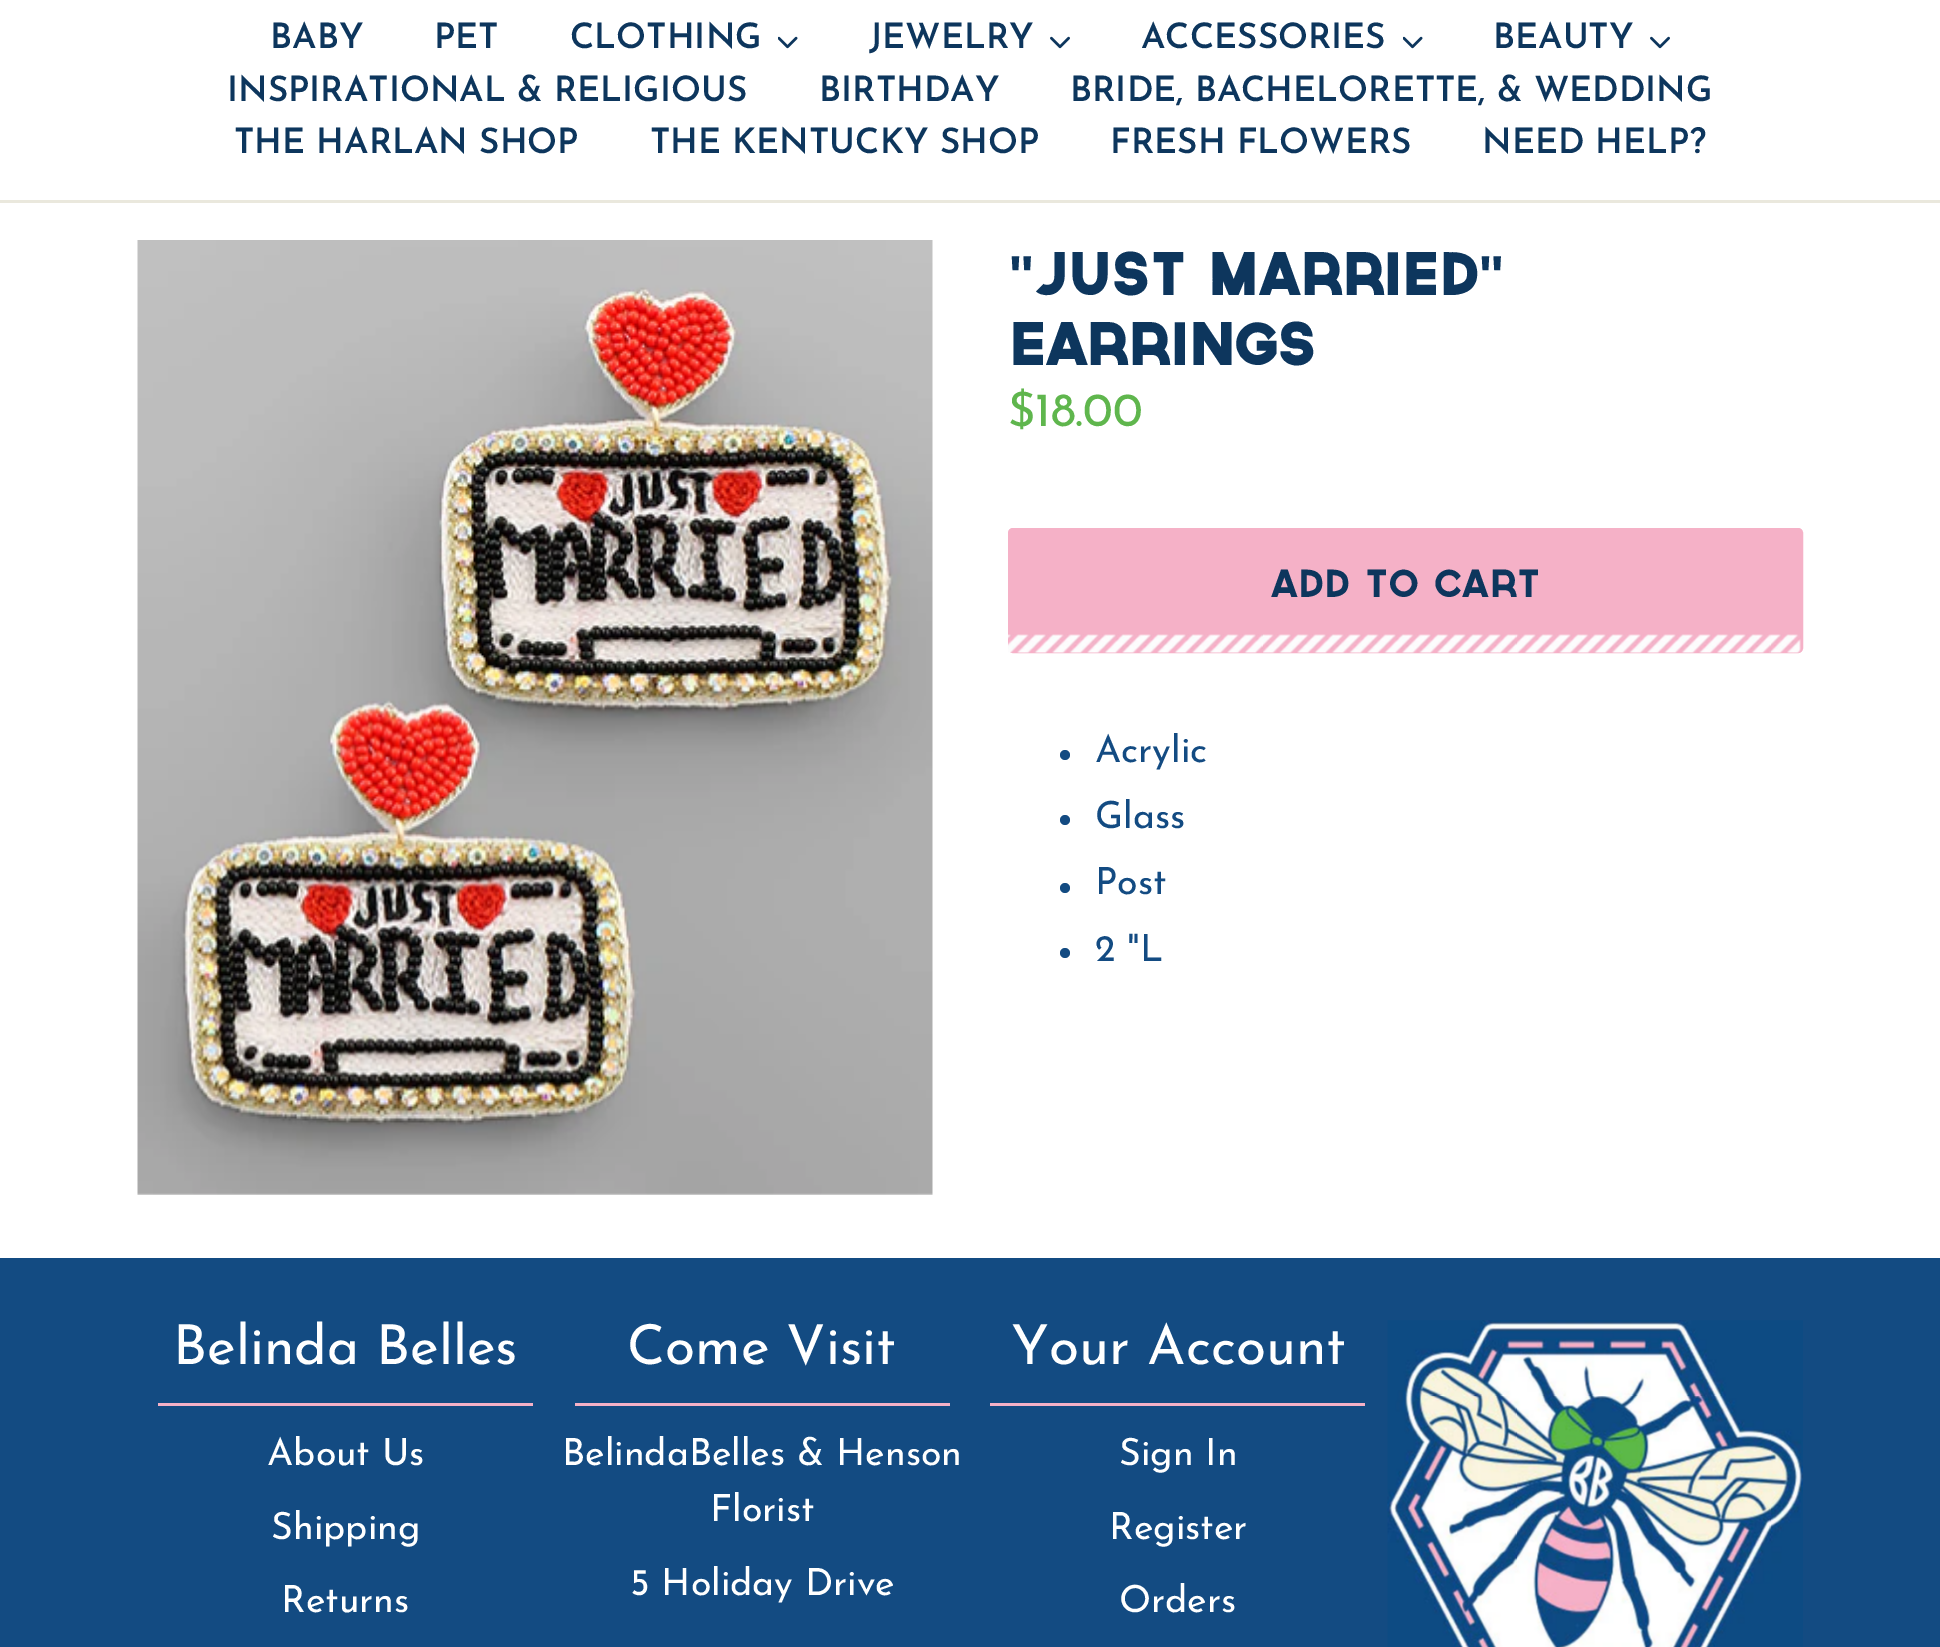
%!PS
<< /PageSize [1940 1647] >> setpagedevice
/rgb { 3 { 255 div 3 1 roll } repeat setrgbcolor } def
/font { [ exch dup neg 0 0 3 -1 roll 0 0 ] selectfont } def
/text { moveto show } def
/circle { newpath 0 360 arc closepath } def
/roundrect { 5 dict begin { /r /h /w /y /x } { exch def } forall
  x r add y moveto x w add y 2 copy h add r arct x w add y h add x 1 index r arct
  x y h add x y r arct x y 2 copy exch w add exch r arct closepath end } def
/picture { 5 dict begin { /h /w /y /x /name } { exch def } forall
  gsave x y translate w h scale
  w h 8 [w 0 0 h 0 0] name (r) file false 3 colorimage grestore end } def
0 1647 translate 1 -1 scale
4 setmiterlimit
255 255 255 rgb
0 0 1940 1647 rectfill
234 232 221 rgb
0 200 1940 3 rectfill
(img_01.rgb) 778 36 20 13 picture
(img_02.rgb) 1050 36 20 13 picture
(img_01.rgb) 1403 36 20 13 picture
(img_02.rgb) 1650 36 20 13 picture
(img_03.rgb) 137 240 796 955 picture
245 177 199 rgb
1010.5 530.5 790 120 2.5 roundrect gsave fill grestore
5 setlinewidth
stroke
(img_04.rgb) 1008 634 793 19 picture
19 75 130 rgb
1065 755 5 circle fill
1065 820 5 circle fill
1065 888 5 circle fill
1065 953 5 circle fill
0 1258 1940 389 rectfill
245 177 199 rgb
158 1403 375 3 rectfill
575 1403 375 3 rectfill
990 1403 375 3 rectfill
(img_05.rgb) 1387 1320 416 327 picture
/JosefinSans-SemiBold 35 font
13 54 93 rgb
(BABY) 270 48 text
(PET) 434 48 text
(CLOTHING) 570 48 text
(JEWELRY) 869 48 text
(ACCESSORIES) 1141 48 text
(BEAUTY) 1493 48 text
(INSPIRATIONAL & RELIGIOUS) 227 101 text
(BIRTHDAY) 819 101 text
(BRIDE, BACHELORETTE, & WEDDING) 1070 101 text
(THE HARLAN SHOP) 234 153 text
(THE KENTUCKY SHOP) 650 153 text
(FRESH FLOWERS) 1110 153 text
(NEED HELP?) 1482 153 text
/LiberationSans-Bold 56.25 font
(") 1008 295 text
/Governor-Bold 56.25 font
(JUST MARRIED) 1034 295 text
/LiberationSans-Bold 56.25 font
(") 1478 295 text
/Governor-Bold 56.25 font
(EARRINGS) 1008 365 text
/JosefinSans-Regular 47.5 font
95 182 77 rgb
($18.00) 1008 426 text
/Governor-Regular 37.5 font
13 54 93 rgb
(ADD TO CART) 1271 597 text
/JosefinSans-Regular 37.5 font
19 75 130 rgb
(Acrylic) 1095 762 text
(Glass) 1095 828 text
(Post) 1095 894 text
(2 "L) 1095 961 text
/JosefinSans-Regular 55 font
255 255 255 rgb
(Belinda Belles) 173 1364 text
/JosefinSans-Regular 37.5 font
(About Us) 267 1465 text
(Shipping) 271 1539 text
(Returns) 281 1612 text
/JosefinSans-Regular 55 font
(Come Visit) 627 1364 text
/JosefinSans-Regular 37.5 font
(BelindaBelles & Henson) 562 1465 text
(Florist) 710 1521 text
(5 Holiday Drive) 630 1595 text
/JosefinSans-Regular 55 font
(Your Account) 1011 1364 text
/JosefinSans-Regular 37.5 font
(Sign In) 1119 1465 text
(Register) 1109 1539 text
(Orders) 1119 1612 text
showpage
